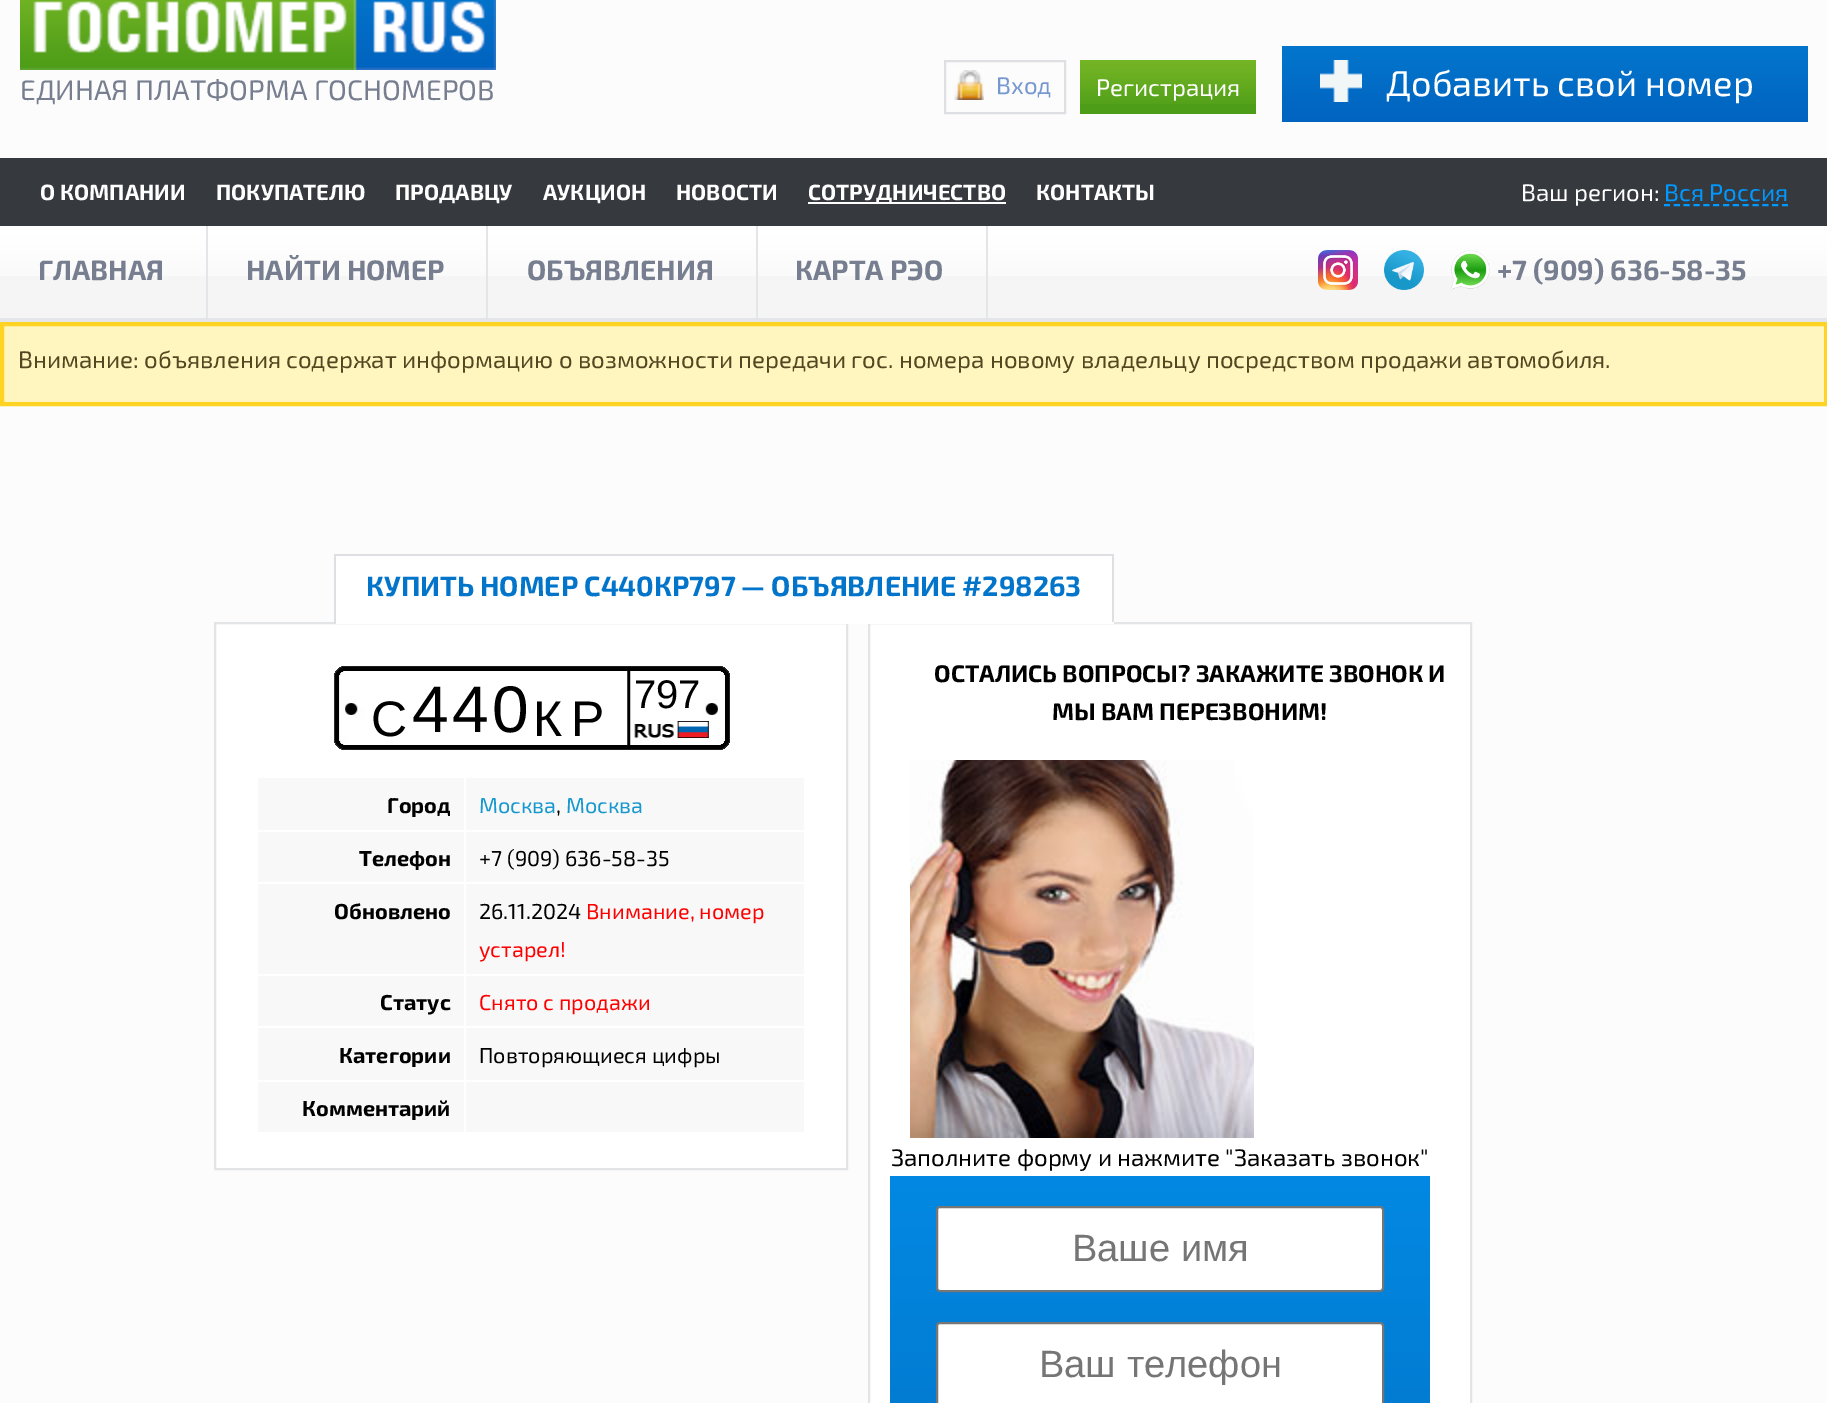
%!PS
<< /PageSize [1827 1403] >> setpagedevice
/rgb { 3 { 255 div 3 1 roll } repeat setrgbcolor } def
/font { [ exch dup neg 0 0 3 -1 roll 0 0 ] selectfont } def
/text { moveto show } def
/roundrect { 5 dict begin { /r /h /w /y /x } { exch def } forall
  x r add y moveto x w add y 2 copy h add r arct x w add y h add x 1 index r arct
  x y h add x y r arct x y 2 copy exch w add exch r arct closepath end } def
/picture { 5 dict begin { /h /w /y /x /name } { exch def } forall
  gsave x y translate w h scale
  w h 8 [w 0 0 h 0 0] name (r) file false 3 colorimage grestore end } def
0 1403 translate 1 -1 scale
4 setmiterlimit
252 252 252 rgb
0 0 1827 1403 rectfill
(img_01.rgb) 20 0 476 70 picture
(img_02.rgb) 954 70 30 30 picture
222 223 226 rgb
2 setlinewidth
945 61 120 52 rectstroke
78 157 24 rgb
1080 104 176 10 rectfill
(img_03.rgb) 1080 60 176 44 picture
(img_04.rgb) 1282 46 526 76 picture
(img_05.rgb) 1320 60 42 42 picture
54 57 62 rgb
0 158 1827 68 rectfill
255 255 255 rgb
808 202 198 2 rectfill
0 153 255 rgb
[6 3.84] 0 setdash
1664 205 moveto 124 0 rlineto stroke
228 229 232 rgb
0 318 1827 4 rectfill
245 245 245 rgb
0 276 1827 42 rectfill
(img_06.rgb) 0 226 1827 50 picture
228 229 232 rgb
206 226 2 92 rectfill
486 226 2 92 rectfill
756 226 2 92 rectfill
986 226 2 92 rectfill
(img_07.rgb) 1318 250 40 40 picture
(img_08.rgb) 1384 250 40 40 picture
(img_09.rgb) 1450 250 40 40 picture
255 246 191 rgb
2 324 moveto 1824 0 rlineto 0 80 rlineto -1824 0 rlineto closepath gsave fill grestore
255 211 36 rgb
4 setlinewidth
[] 0 setdash
stroke
255 255 255 rgb
336 556 776 66 rectfill
222 223 226 rgb
334 554 780 2 rectfill
255 255 255 rgb
869 623 moveto 602 0 rlineto 0 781 rlineto -602 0 rlineto closepath gsave fill grestore
226 228 230 rgb
2 setlinewidth
stroke
222 223 226 rgb
1112 554 2 70 rectfill
255 255 255 rgb
215 623 moveto 632 0 rlineto 0 546 rlineto -632 0 rlineto closepath gsave fill grestore
226 228 230 rgb
stroke
255 255 255 rgb
334 622 780 2 rectfill
222 223 226 rgb
334 554 2 70 rectfill
(img_10.rgb) 334 666 396 84 picture
248 248 248 rgb
258 778 546 52 rectfill
258 832 546 50 rectfill
258 884 546 90 rectfill
258 976 546 50 rectfill
258 1028 546 52 rectfill
258 1082 546 50 rectfill
255 255 255 rgb
464 776 2 358 rectfill
(img_11.rgb) 910 760 344 378 picture
gsave 890 1176 moveto 540 0 rlineto 0 227 rlineto -540 0 rlineto closepath clip newpath
<< /ShadingType 2 /ColorSpace /DeviceRGB /Coords [1160 1176 1160 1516] /Extend [true true] /Function << /FunctionType 2 /Domain [0 1] /C0 [0.008 0.537 0.89] /C1 [0.008 0.459 0.796] /N 1 >> >> shfill grestore
937 1207 446 84 3 roundrect gsave fill grestore
118 118 118 rgb
stroke
255 255 255 rgb
937 1323 446 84 3 roundrect gsave fill grestore
118 118 118 rgb
stroke
/Exo2-Regular 28.25 font
118 126 143 rgb
(ЕДИНАЯ ПЛАТФОРМА ГОСНОМЕРОВ) 20 100 text
/Exo2-Regular 24 font
118 152 208 rgb
(Вход) 996 94 text
255 255 255 rgb
(Регистрация) 1096 96 text
/Exo2-Regular 36 font
(Добавить свой номер) 1386 96 text
/Exo2-Bold 22 font
(О КОМПАНИИ) 40 200 text
(ПОКУПАТЕЛЮ) 216 200 text
(ПРОДАВЦУ) 395 200 text
(АУКЦИОН) 543 200 text
(НОВОСТИ) 676 200 text
(СОТРУДНИЧЕСТВО) 808 200 text
(КОНТАКТЫ) 1036 200 text
/Exo2-Regular 24 font
(Ваш регион:) 1521 201 text
0 153 255 rgb
(Вся Россия) 1664 201 text
/Exo2-Bold 28 font
118 126 143 rgb
(ГЛАВНАЯ) 38 280 text
(НАЙТИ НОМЕР) 246 280 text
(ОБЪЯВЛЕНИЯ) 527 280 text
(КАРТА РЭО) 795 280 text
(+7 \(909\) 636-58-35) 1497 280 text
/Exo2-Regular 24 font
81 71 33 rgb
(Внимание: объявления содержат информацию о возможности передачи гос. номера новому владельцу посредством продажи автомобиля.) 18 368 text
/Exo2-Bold 28 font
2 117 203 rgb
(КУПИТЬ НОМЕР С440КР797 — ОБЪЯВЛЕНИЕ #298263) 366 596 text
/LiberationSans-Regular 50 font
0 0 0 rgb
371 736 moveto 6 0 (С) ashow
/LiberationSans-Regular 66 font
412 732 moveto 2 0 (4) ashow
452 732 moveto 2 0 (4) ashow
492 732 moveto 2 0 (0) ashow
/LiberationSans-Regular 50 font
533 736 moveto 6 0 (К) ashow
571 736 moveto 6 0 (Р) ashow
/LiberationSans-Regular 40 font
(797) 634 708 text
/Exo2-Bold 21.6 font
(Город) 387 813 text
/Exo2-Regular 21.6 font
23 153 207 rgb
(Москва) 479 813 text
0 0 0 rgb
(,) 556 813 text
23 153 207 rgb
(Москва) 566 813 text
/Exo2-Bold 21.6 font
0 0 0 rgb
(Телефон) 359 866 text
/Exo2-Regular 21.6 font
(+7 \(909\) 636-58-35) 479 866 text
/Exo2-Bold 21.6 font
(Обновлено) 334 919 text
/Exo2-Regular 21.6 font
(26.11.2024) 479 919 text
255 0 0 rgb
(Внимание, номер) 586 919 text
(устарел!) 479 957 text
/Exo2-Bold 21.6 font
0 0 0 rgb
(Статус) 380 1010 text
/Exo2-Regular 21.6 font
255 0 0 rgb
(Снято с продажи) 479 1010 text
/Exo2-Bold 21.6 font
0 0 0 rgb
(Категории) 339 1063 text
/Exo2-Regular 21.6 font
(Повторяющиеся цифры) 479 1063 text
/Exo2-Bold 21.6 font
(Комментарий) 302 1116 text
/Exo2-Bold 24 font
(ОСТАЛИСЬ ВОПРОСЫ? ЗАКАЖИТЕ ЗВОНОК И) 934 682 text
(МЫ ВАМ ПЕРЕЗВОНИМ!) 1052 720 text
/Exo2-Regular 24 font
(Заполните форму и нажмите "Заказать звонок") 891 1166 text
/LiberationSans-Regular 38 font
117 117 117 rgb
(Ваше имя) 1072 1261 text
(Ваш телефон) 1039 1377 text
showpage
